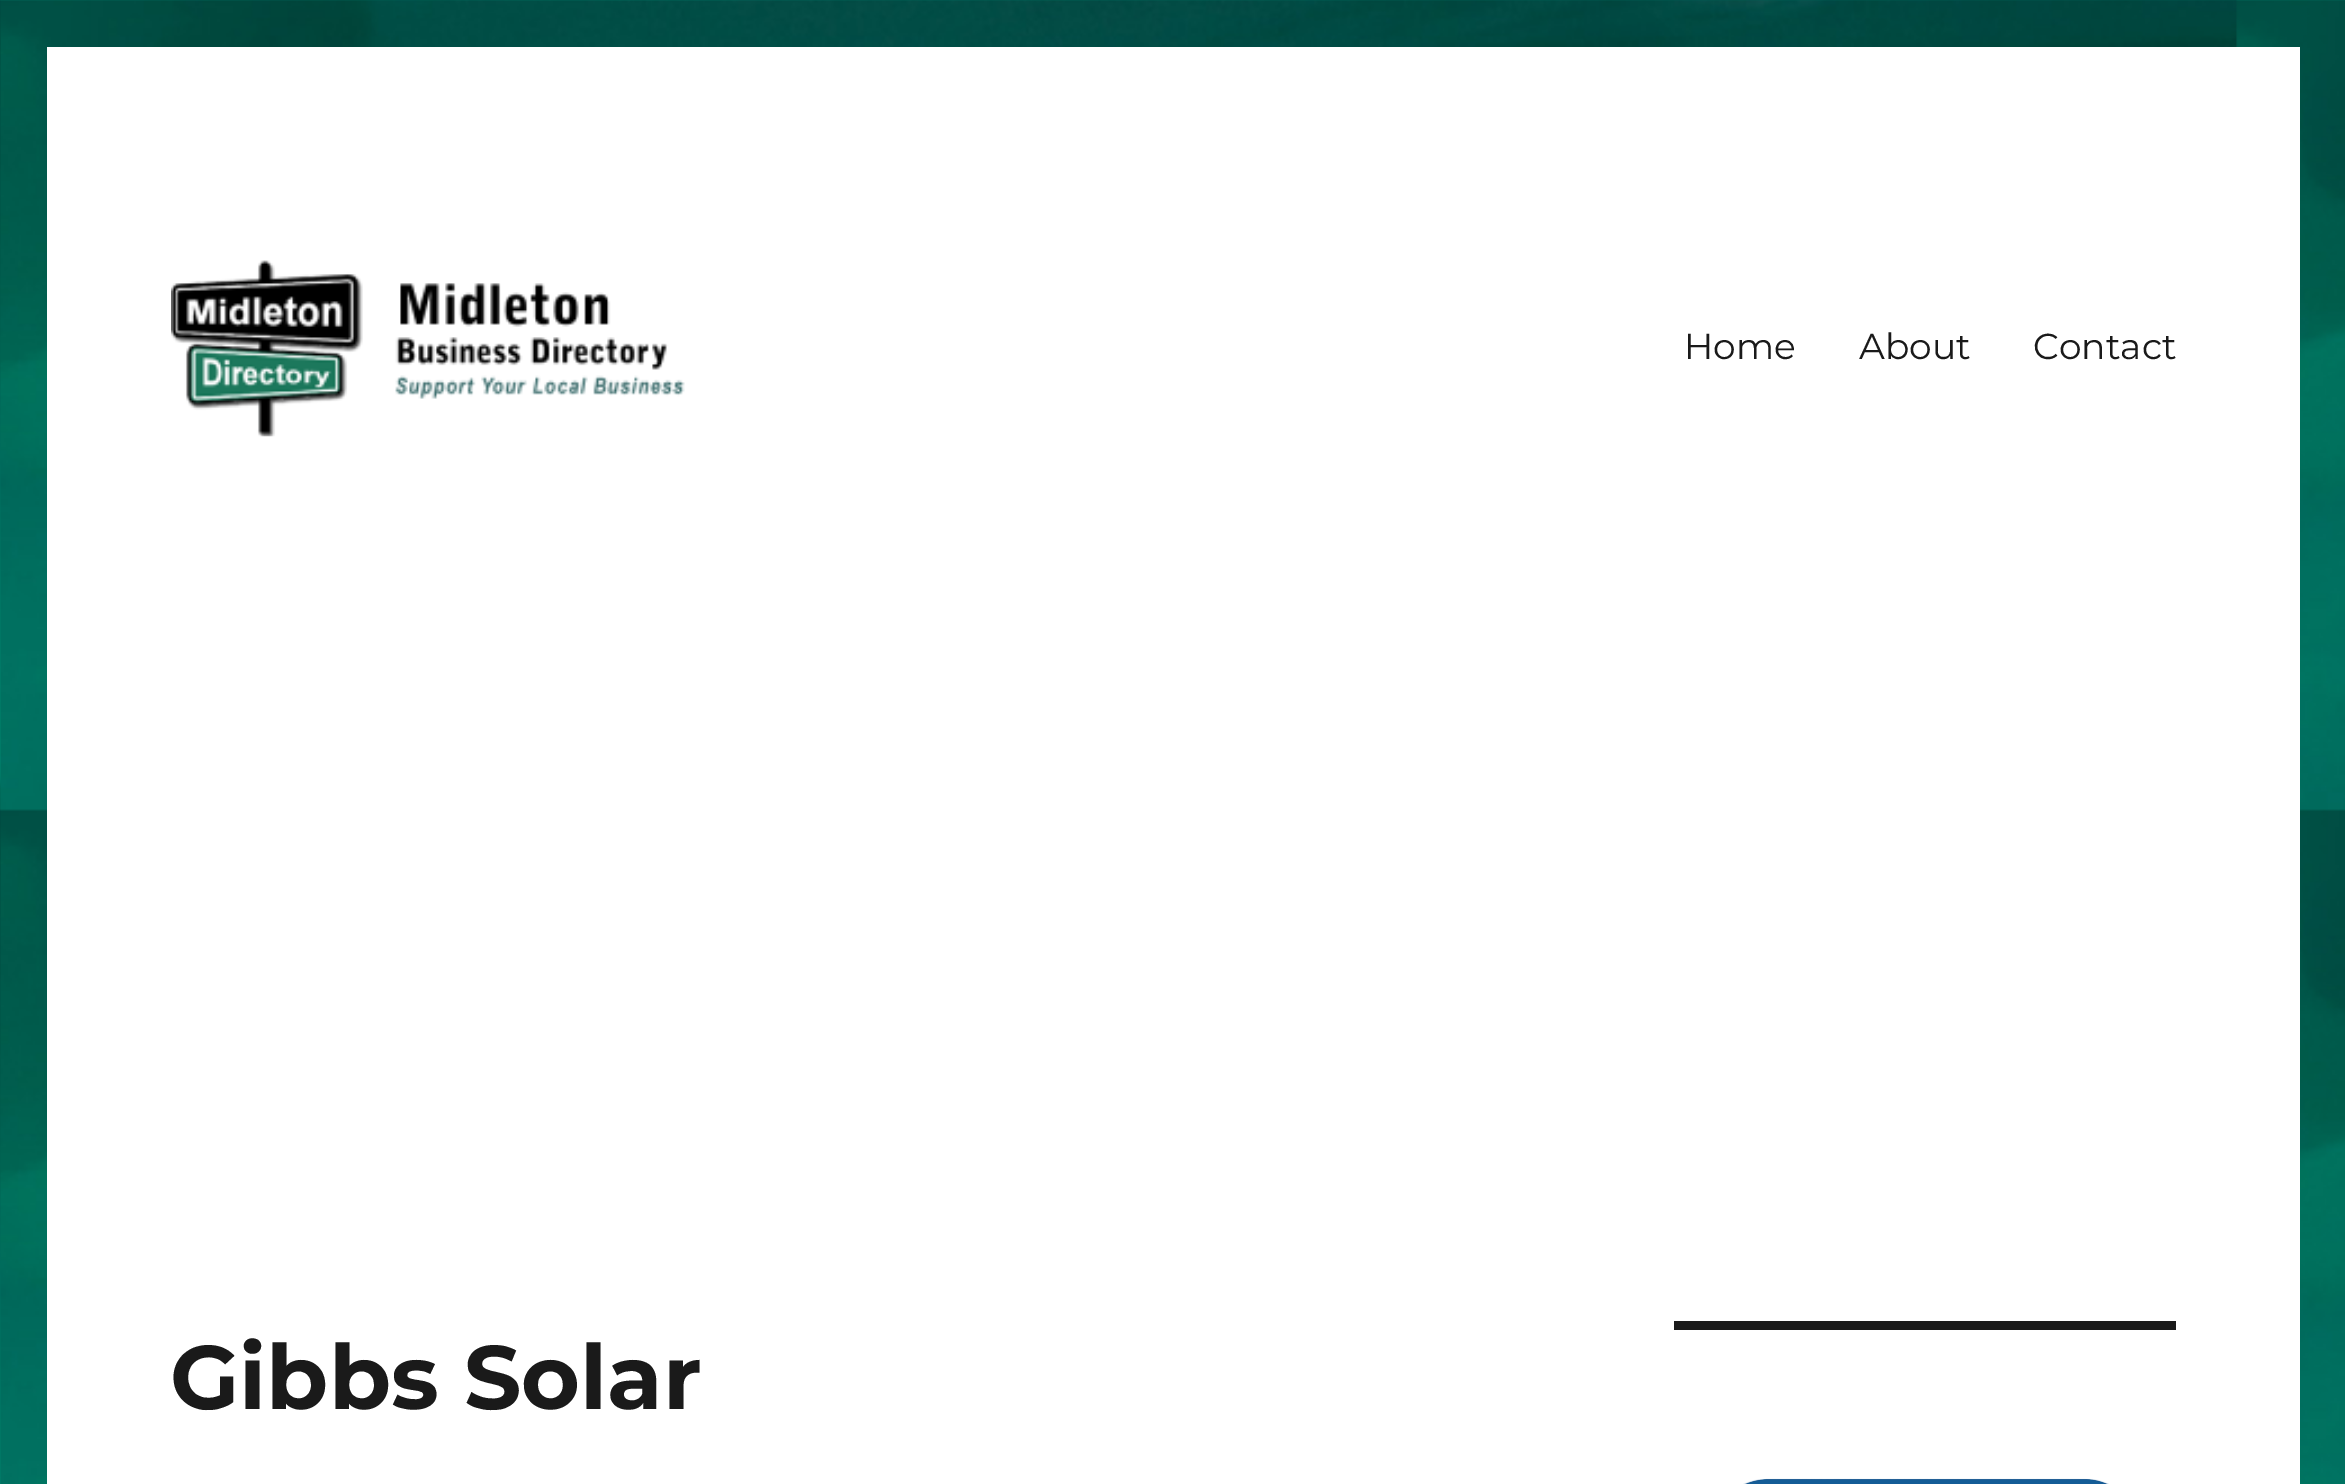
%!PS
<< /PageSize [2345 1484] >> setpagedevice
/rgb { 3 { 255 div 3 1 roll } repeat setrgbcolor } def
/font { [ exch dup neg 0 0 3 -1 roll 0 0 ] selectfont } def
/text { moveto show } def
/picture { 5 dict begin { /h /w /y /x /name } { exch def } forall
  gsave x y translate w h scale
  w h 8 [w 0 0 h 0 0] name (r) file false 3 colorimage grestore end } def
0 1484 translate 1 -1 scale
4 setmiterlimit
255 255 255 rgb
0 0 2345 1484 rectfill
(img_01.rgb) 0 0 2345 1484 picture
47 47 2253 1437 rectfill
(img_02.rgb) 171 260 514 177 picture
26 26 26 rgb
1674 1321 502 9 rectfill
(img_03.rgb) 1743 1478 366 6 picture
/Montserrat-Thin 36 font
(Home) 1684 359 text
(About) 1859 359 text
(Contact) 2033 359 text
/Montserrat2-Thin 90 font
(Gibbs Solar) 170 1409 text
showpage
